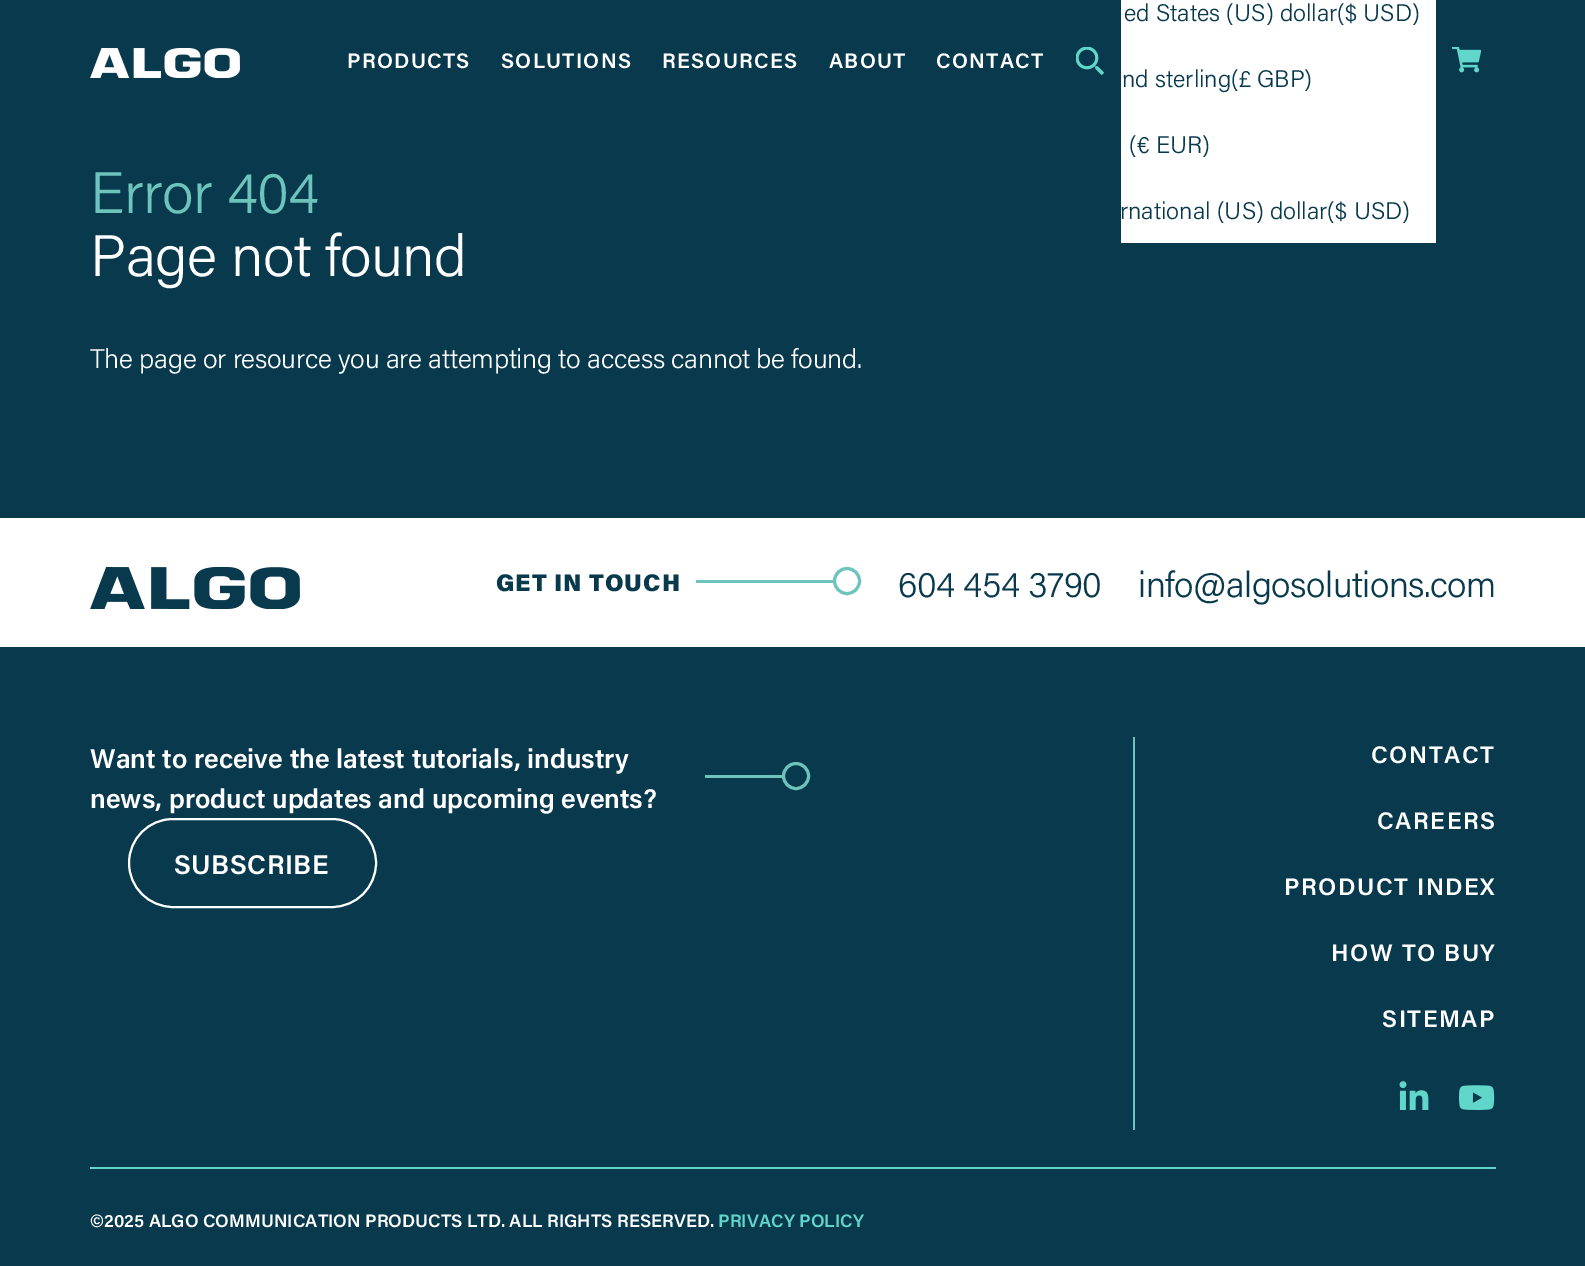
%!PS
<< /PageSize [1585 1266] >> setpagedevice
/rgb { 3 { 255 div 3 1 roll } repeat setrgbcolor } def
/font { [ exch dup neg 0 0 3 -1 roll 0 0 ] selectfont } def
/text { moveto show } def
/circle { newpath 0 360 arc closepath } def
/roundrect { 5 dict begin { /r /h /w /y /x } { exch def } forall
  x r add y moveto x w add y 2 copy h add r arct x w add y h add x 1 index r arct
  x y h add x y r arct x y 2 copy exch w add exch r arct closepath end } def
/picture { 5 dict begin { /h /w /y /x /name } { exch def } forall
  gsave x y translate w h scale
  w h 8 [w 0 0 h 0 0] name (r) file false 3 colorimage grestore end } def
0 1266 translate 1 -1 scale
4 setmiterlimit
255 255 255 rgb
0 0 1585 1266 rectfill
8 57 77 rgb
0 0 1585 518 rectfill
(img_01.rgb) 90 48 150 30 picture
(img_02.rgb) 1076 47 28 28 picture
255 255 255 rgb
1121 0 315 243 rectfill
(img_03.rgb) 1452 47 29 26 picture
(img_04.rgb) 90 567 210 42 picture
108 196 189 rgb
696 580 139 3 rectfill
3 setlinewidth
847 581 12.5 circle stroke
8 57 77 rgb
0 647 1585 619 rectfill
108 196 189 rgb
1133 737 2 393 rectfill
705 775 79 3 rectfill
796 776 12.5 circle stroke
255 255 255 rgb
2 setlinewidth
129 819 247 88 44 roundrect stroke
(img_05.rgb) 1399 1081 30 29 picture
(img_06.rgb) 1458 1085 37 25 picture
97 214 202 rgb
90 1167 1406 2 rectfill
/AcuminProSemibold-SemiBold 21 font
255 255 255 rgb
347 68 moveto 1.25 0 (PRODUCTS) ashow
501 68 moveto 1.25 0 (SOLUTIONS) ashow
662 68 moveto 1.25 0 (RESOURCES) ashow
829 68 moveto 1.25 0 (ABOUT) ashow
936 68 moveto 1.25 0 (CONTACT) ashow
/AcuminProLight-Light 24 font
8 57 77 rgb
(ed States \(US\) dollar\($ USD\)) 1124 21 text
(nd sterling\(£ GBP\)) 1122 87 text
(\(€ EUR\)) 1129 153 text
(rnational \(US\) dollar\($ USD\)) 1120 219 text
/AcuminProLight-Light 58.5 font
108 196 189 rgb
90 213 moveto -0.6 0 (Error 404) ashow
255 255 255 rgb
90 276 moveto -0.6 0 (Page not found) ashow
/AcuminProLight-Light 27 font
90 368 moveto -0.27 0 (The page or resource you are attempting to access cannot be found.) ashow
/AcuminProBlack-Black 24 font
8 57 77 rgb
496 591 moveto 1 0 (GET IN TOUCH) ashow
/AcuminProLight-Light 36 font
898 597 moveto -0.5 0 (604 454 3790) ashow
1138 597 moveto -0.5 0 (info@algosolutions.com) ashow
/AcuminProSemibold-SemiBold 27 font
255 255 255 rgb
(Want to receive the latest tutorials, industry) 90 768 text
(news, product updates and upcoming events?) 90 808 text
174 874 moveto 0.5 0 (SUBSCRIBE) ashow
/AcuminProSemibold-SemiBold 24 font
1371 763 moveto 1.5 0 (CONTACT) ashow
1377 829 moveto 1.5 0 (CAREERS) ashow
1284 895 moveto 1.5 0 (PRODUCT INDEX) ashow
1331 961 moveto 1.5 0 (HOW TO BUY) ashow
1382 1027 moveto 1.5 0 (SITEMAP) ashow
/AcuminProSemibold-SemiBold 18 font
(©2025 ALGO COMMUNICATION PRODUCTS LTD. ALL RIGHTS RESERVED.) 90 1227 text
97 214 202 rgb
(PRIVACY POLICY) 718 1227 text
showpage
